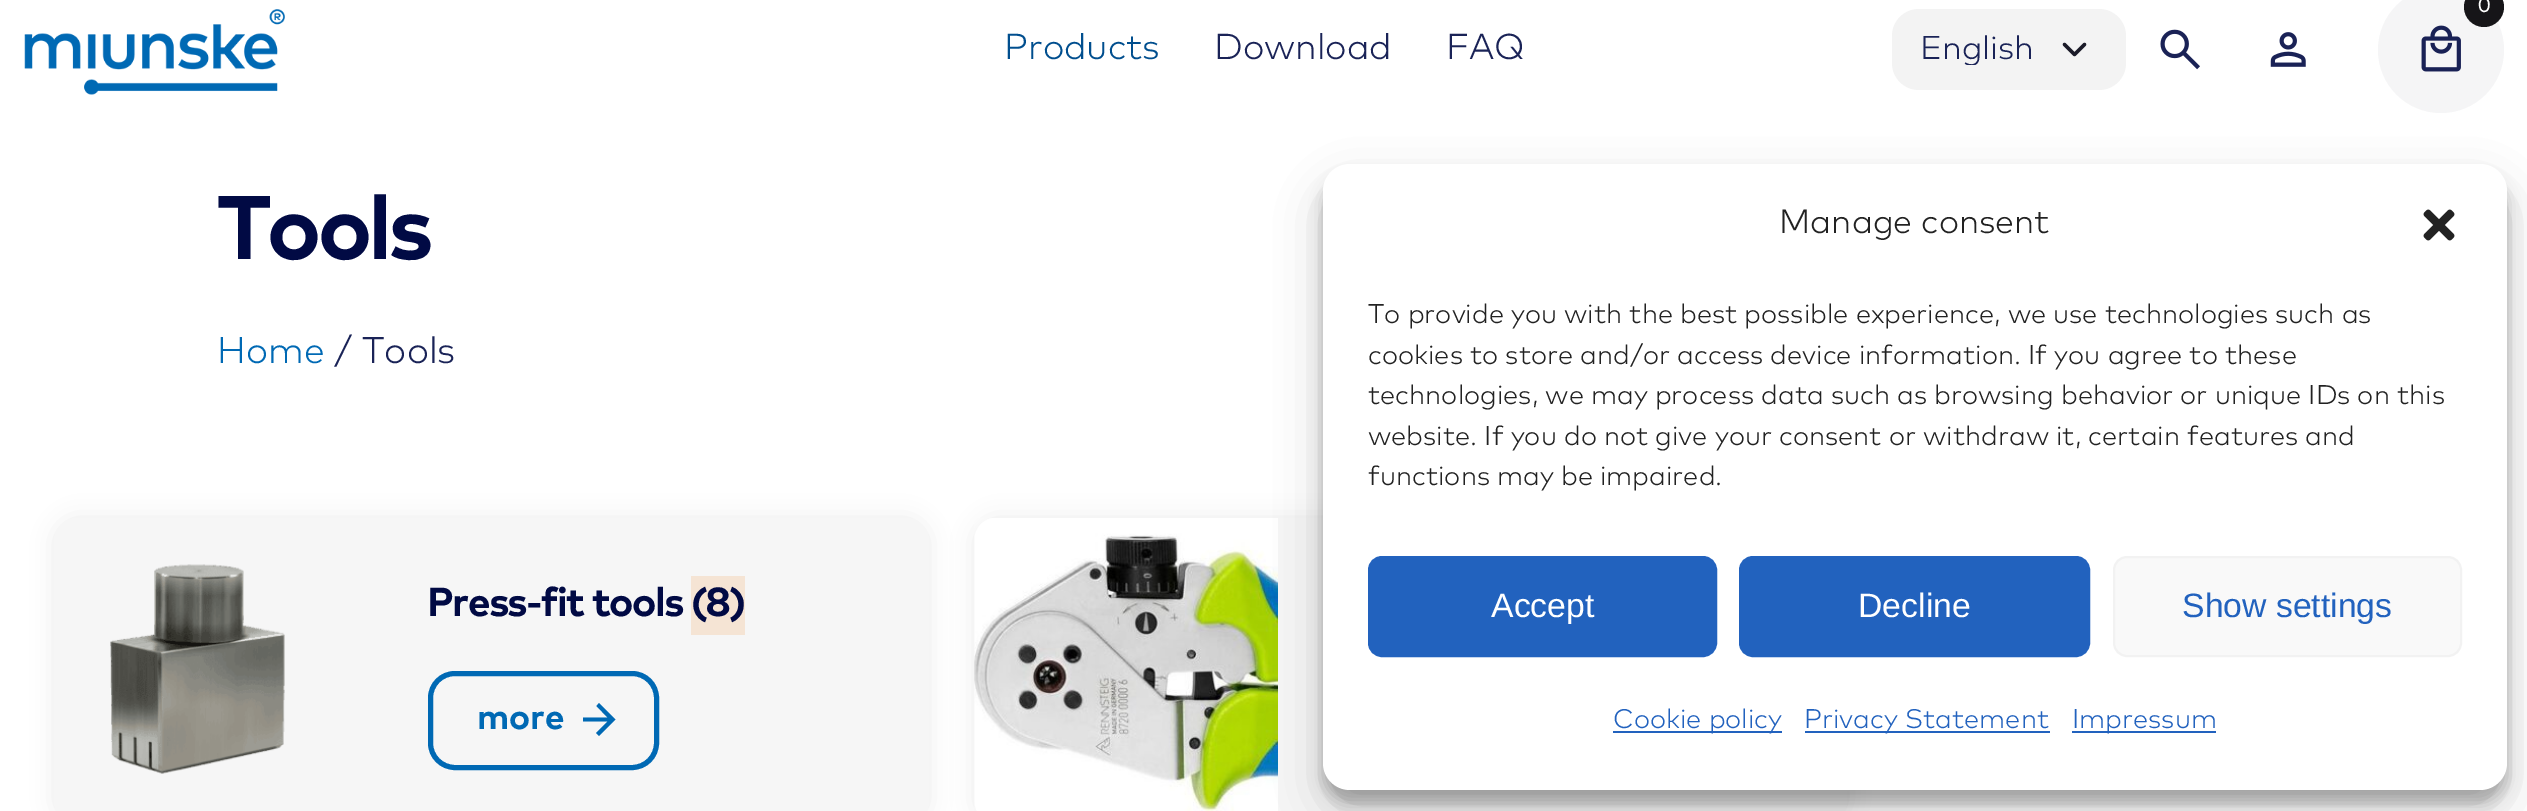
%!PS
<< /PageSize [2527 811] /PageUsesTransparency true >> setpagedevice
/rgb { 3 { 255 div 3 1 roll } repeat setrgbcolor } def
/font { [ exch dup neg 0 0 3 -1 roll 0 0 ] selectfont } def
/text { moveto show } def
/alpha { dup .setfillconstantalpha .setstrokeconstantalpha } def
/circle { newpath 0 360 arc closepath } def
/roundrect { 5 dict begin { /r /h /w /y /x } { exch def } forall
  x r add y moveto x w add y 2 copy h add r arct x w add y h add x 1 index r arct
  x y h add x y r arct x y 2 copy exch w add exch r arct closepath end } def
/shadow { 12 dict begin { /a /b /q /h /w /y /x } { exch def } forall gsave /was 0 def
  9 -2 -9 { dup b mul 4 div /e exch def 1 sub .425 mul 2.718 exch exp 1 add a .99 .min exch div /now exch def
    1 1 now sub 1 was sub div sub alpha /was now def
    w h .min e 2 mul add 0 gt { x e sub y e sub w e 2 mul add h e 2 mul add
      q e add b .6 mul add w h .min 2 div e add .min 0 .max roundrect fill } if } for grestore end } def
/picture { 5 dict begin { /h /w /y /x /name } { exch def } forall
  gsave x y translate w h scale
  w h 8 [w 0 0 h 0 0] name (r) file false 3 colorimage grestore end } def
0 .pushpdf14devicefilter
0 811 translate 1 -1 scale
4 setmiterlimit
255 255 255 rgb
0 0 2527 811 rectfill
(img_01.rgb) 24 9 261 86 picture
245 245 246 rgb
2441 50 63 circle fill
(img_02.rgb) 2421 25 40 47 picture
22 21 24 rgb
2484 7 20 circle fill
243 243 243 rgb
1892 9 234 81 27 roundrect fill
27 27 40 rgb
3.4 setlinewidth
1 setlinecap
1 setlinejoin
2064.5 44.5 moveto 10 10 rlineto 10 -10 rlineto stroke
(img_03.rgb) 2160 29 40 41 picture
(img_04.rgb) 2270 32 36 35 picture
0 0 0 rgb
54 518 875 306 23 11 0.07 shadow
246 246 246 rgb
54 518 875 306 23 roundrect fill
(img_05.rgb) 110 564 175 210 picture
245 228 212 rgb
691 576 54 59 rectfill
0 105 180 rgb
5 setlinewidth
0 setlinecap
0 setlinejoin
430.5 673.5 226 94 24.5 roundrect stroke
583 721.5 moveto 0 -4 rlineto 24.5 0 rlineto -11 -11.5 rlineto 2.5 -3 rlineto 16.5 16.5 rlineto -16.5 16.5 rlineto -3 -3 rlineto 11.5 -11.5 rlineto closepath fill
0 0 0 rgb
974 518 873 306 23 11 0.07 shadow
246 246 246 rgb
974 518 873 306 23 roundrect fill
(img_06.rgb) 974 518 304 293 picture
0 0 0 rgb
1323 178 1184 625 27 7 0.23 shadow
1323 187 1184 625 27 22.5 0.19 shadow
255 255 255 rgb
1323 164 1184 626 27 roundrect fill
(img_07.rgb) 2423 209 32 32 picture
34 98 190 rgb
1369 557 347 99 13 roundrect gsave fill grestore
2 setlinewidth
stroke
1740 557 349 99 13 roundrect gsave fill grestore
stroke
249 249 249 rgb
2114 557 347 99 13 roundrect gsave fill grestore
242 242 242 rgb
stroke
34 98 190 rgb
1613 731 169 2 rectfill
1805 731 245 2 rectfill
2072 731 144 2 rectfill
/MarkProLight-Regular 36 font
0 78 142 rgb
(Products) 1004 59 text
26 35 87 rgb
(Download) 1214 59 text
(FAQ) 1446 59 text
/MarkProLight-Bold 20 font
255 255 255 rgb
(0) 2478 12 text
gsave
1919 32 135 33 rectclip
/MarkProLight-Regular 33 font
26 35 87 rgb
(English) 1920 59 text
grestore
/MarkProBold-Regular 90 font
1 10 68 rgb
217 259 moveto -4 0 (Tools) ashow
/MarkProLight-Regular 37 font
0 105 180 rgb
(Home) 217 363 text
26 35 87 rgb
(/ Tools) 334 363 text
/MarkProBold-Regular 40.5 font
1 10 68 rgb
427 616 moveto -1.6 0 (Press-fit tools) ashow
691 616 moveto -1.6 0 (\(8\)) ashow
/MarkProBold-Regular 35 font
0 105 180 rgb
(more) 477 729 text
/MarkProLight-Regular 33.75 font
34 34 34 rgb
(Manage consent) 1779 233 text
/MarkProLight-Regular 27 font
(To provide you with the best possible experience, we use technologies such as) 1368 323 text
(cookies to store and/or access device information. If you agree to these) 1368 364 text
(technologies, we may process data such as browsing behavior or unique IDs on this) 1368 404 text
(website. If you do not give your consent or withdraw it, certain features and) 1368 445 text
(functions may be impaired.) 1368 485 text
/LiberationSans-Regular 33.75 font
255 255 255 rgb
(Accept) 1491 617 text
(Decline) 1858 617 text
34 98 190 rgb
(Show settings) 2182 617 text
/MarkProLight-Regular 27 font
(Cookie policy) 1613 728 text
(Privacy Statement) 1804 728 text
(Impressum) 2072 728 text
.poppdf14devicefilter showpage
